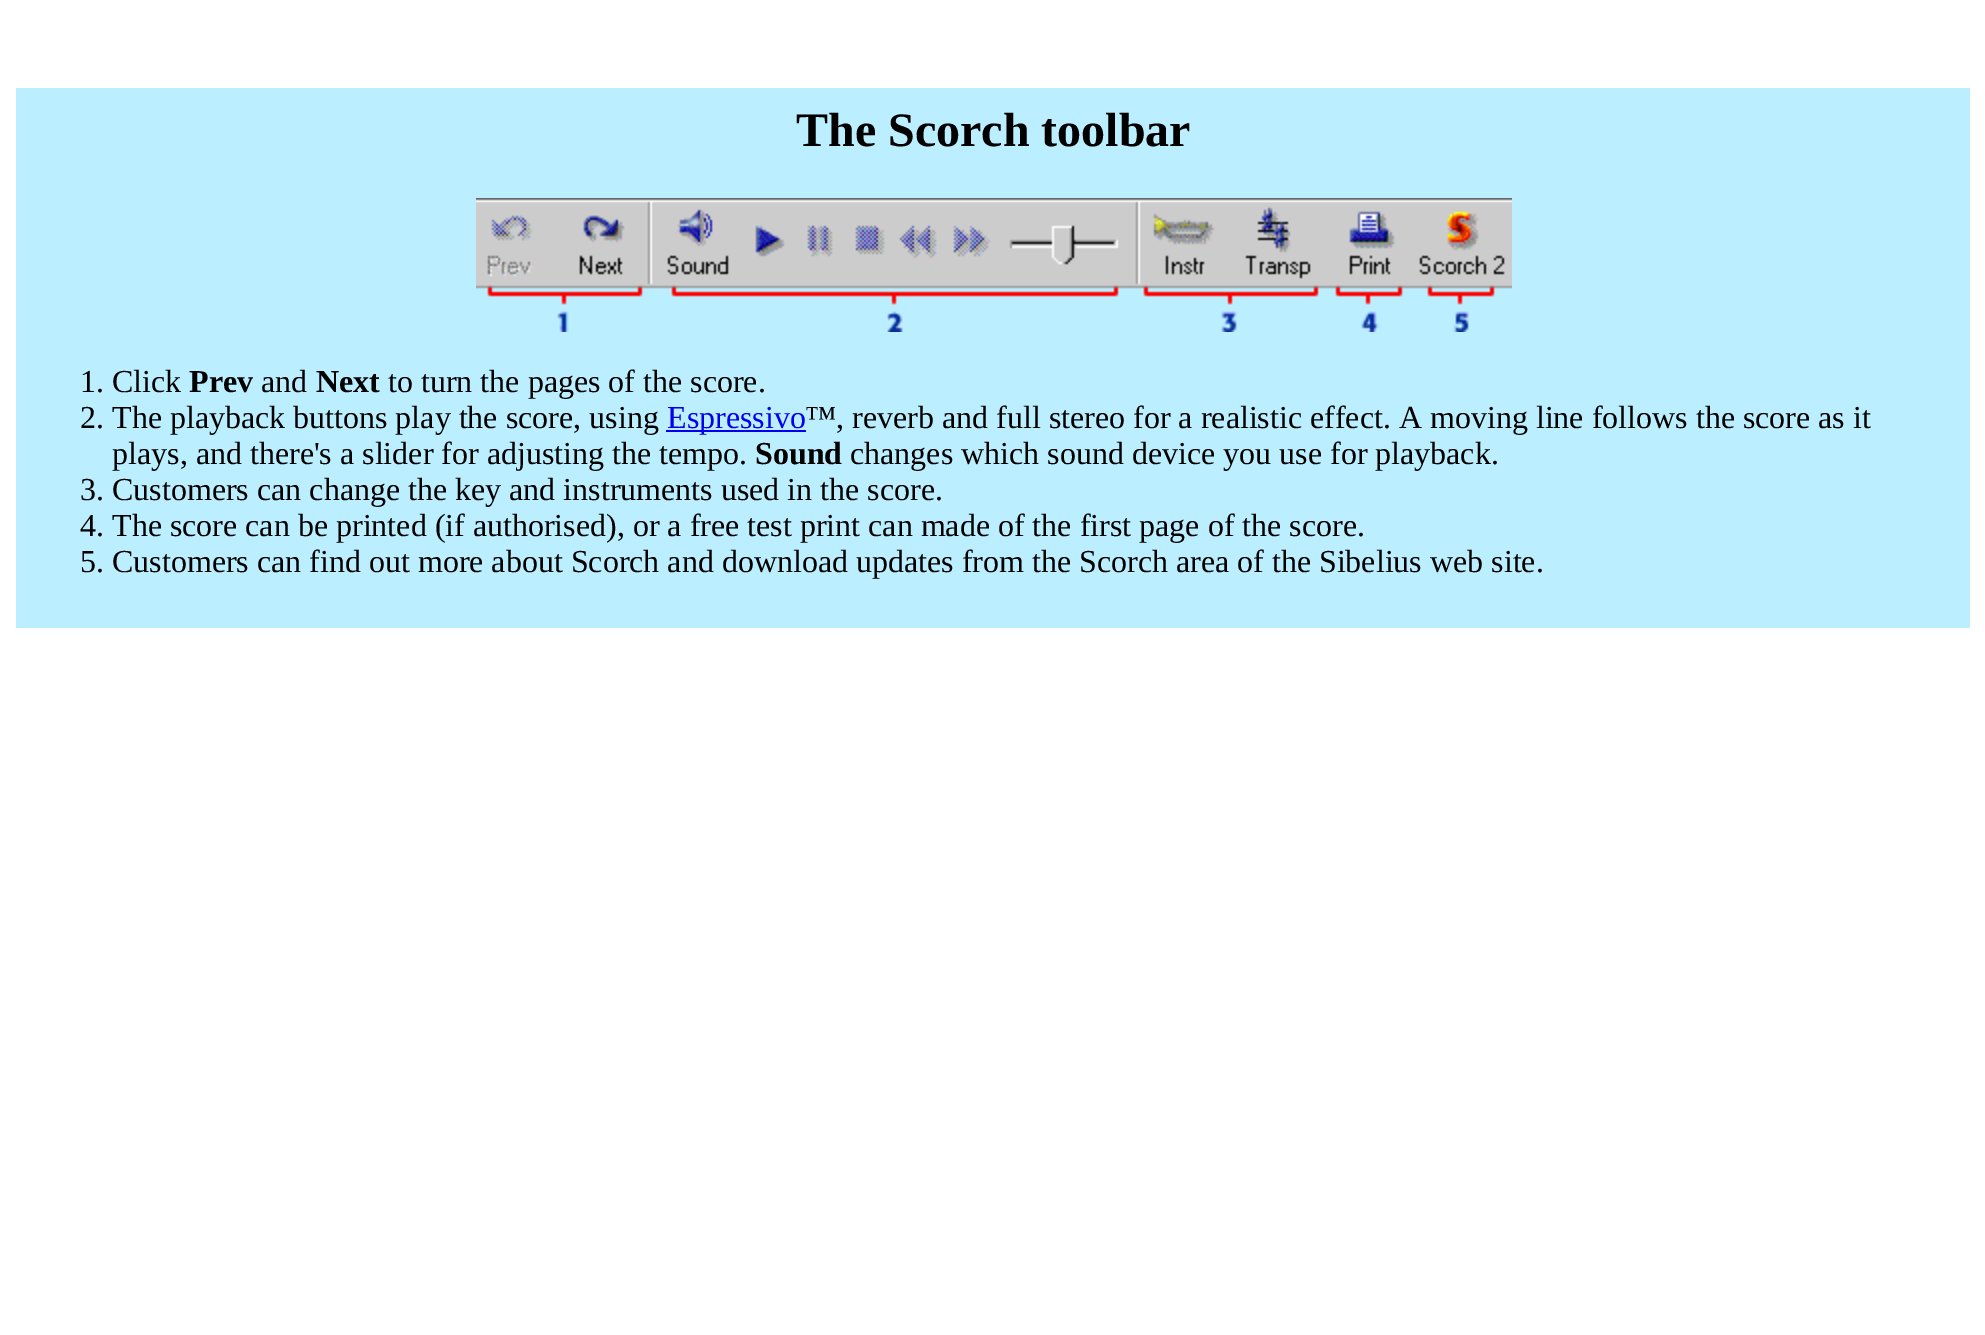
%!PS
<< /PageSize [1985 1335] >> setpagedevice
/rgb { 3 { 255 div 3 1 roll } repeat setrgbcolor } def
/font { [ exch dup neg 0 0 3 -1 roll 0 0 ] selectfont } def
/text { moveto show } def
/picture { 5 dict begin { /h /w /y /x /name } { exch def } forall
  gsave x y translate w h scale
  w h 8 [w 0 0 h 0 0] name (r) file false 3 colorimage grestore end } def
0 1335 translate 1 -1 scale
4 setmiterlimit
255 255 255 rgb
0 0 1985 1335 rectfill
187 238 255 rgb
16 88 1954 540 rectfill
(img_01.rgb) 476 198 1036 134 picture
0 0 238 rgb
666 430 140 2 rectfill
/LiberationSerif-Bold 48 font
0 0 0 rgb
(The Scorch toolbar) 796 146 text
/LiberationSerif-Regular 32 font
(1. Click) 80 392 text
/LiberationSerif-Bold 32 font
(Prev) 189 392 text
/LiberationSerif-Regular 32 font
(and) 261 392 text
/LiberationSerif-Bold 32 font
(Next) 316 392 text
/LiberationSerif-Regular 32 font
(to turn the pages of the score.) 388 392 text
(2. The playback buttons play the score, using) 80 428 text
0 0 238 rgb
(Espressivo) 667 428 text
0 0 0 rgb
(™, reverb and full stereo for a realistic effect. A moving line follows the score as it) 805 428 text
(plays, and there's a slider for adjusting the tempo.) 112 464 text
/LiberationSerif-Bold 32 font
(Sound) 755 464 text
/LiberationSerif-Regular 32 font
(changes which sound device you use for playback.) 850 464 text
(3. Customers can change the key and instruments used in the score.) 80 500 text
(4. The score can be printed \(if authorised\), or a free test print can made of the first page of the score.) 80 536 text
(5. Customers can find out more about Scorch and download updates from the Scorch area of the Sibelius web site.) 80 572 text
showpage
